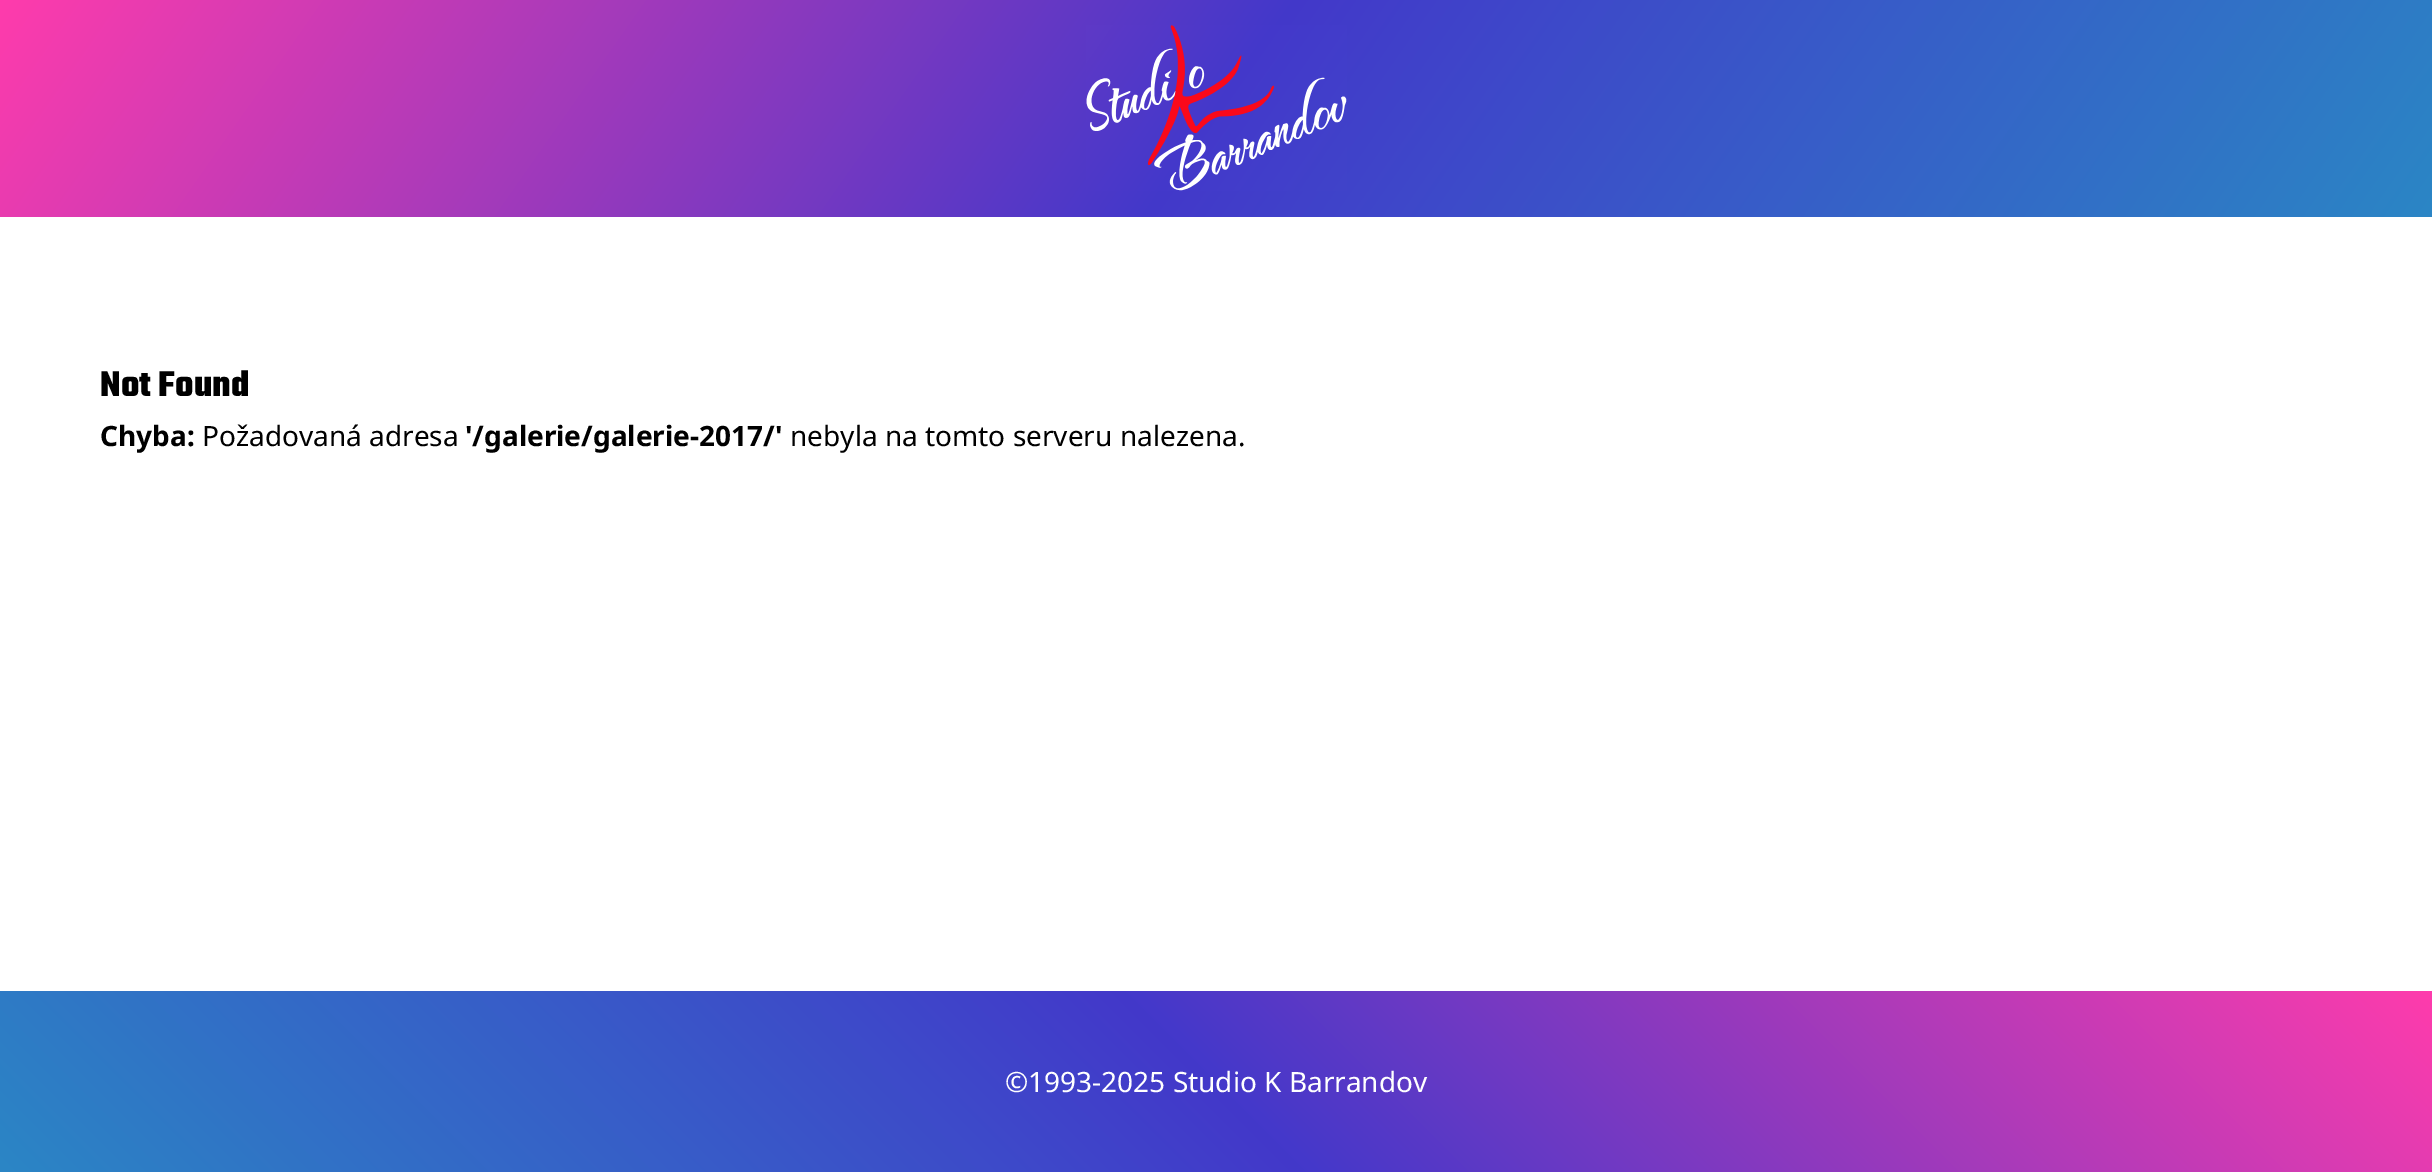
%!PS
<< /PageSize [2432 1172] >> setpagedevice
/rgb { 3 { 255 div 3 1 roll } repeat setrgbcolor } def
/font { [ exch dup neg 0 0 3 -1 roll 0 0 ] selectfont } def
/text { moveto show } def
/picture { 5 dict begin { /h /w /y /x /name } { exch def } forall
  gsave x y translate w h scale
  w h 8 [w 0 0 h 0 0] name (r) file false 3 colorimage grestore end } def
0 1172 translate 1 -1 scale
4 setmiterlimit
255 255 255 rgb
0 0 2432 1172 rectfill
gsave 0 0 moveto 2432 0 rlineto 0 217 rlineto -2432 0 rlineto closepath clip newpath
<< /ShadingType 2 /ColorSpace /DeviceRGB /Coords [349 -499 2083 716] /Extend [true true] /Function << /FunctionType 3 /Domain [0 1] /Functions [<< /FunctionType 2 /Domain [0 1] /C0 [1 0.235 0.675] /C1 [0.263 0.22 0.792] /N 1 >> << /FunctionType 2 /Domain [0 1] /C0 [0.263 0.22 0.792] /C1 [0.169 0.525 0.773] /N 1 >>] /Bounds [0.5] /Encode [0 1 0 1] >> >> shfill grestore
(img_01.rgb) 1086 25 261 166 picture
gsave 0 991 moveto 2432 0 rlineto 0 181 rlineto -2432 0 rlineto closepath clip newpath
<< /ShadingType 2 /ColorSpace /DeviceRGB /Coords [1870 428 563 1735] /Extend [true true] /Function << /FunctionType 3 /Domain [0 1] /Functions [<< /FunctionType 2 /Domain [0 1] /C0 [1 0.235 0.675] /C1 [0.263 0.22 0.792] /N 1 >> << /FunctionType 2 /Domain [0 1] /C0 [0.263 0.22 0.792] /C1 [0.169 0.525 0.773] /N 1 >>] /Bounds [0.5] /Encode [0 1 0 1] >> >> shfill grestore
/Teko-Light 38.5 font
0 0 0 rgb
(Not Found) 100 396 text
/NotoSans-Bold 28 font
(Chyba:) 100 446 text
/NotoSans-Regular 28 font
(Požadovaná adresa) 202 446 text
/NotoSans-Bold 28 font
('/galerie/galerie-2017/') 465 446 text
/NotoSans-Regular 28 font
(nebyla na tomto serveru nalezena.) 790 446 text
255 255 255 rgb
(©1993-2025 Studio K Barrandov) 1005 1092 text
showpage
